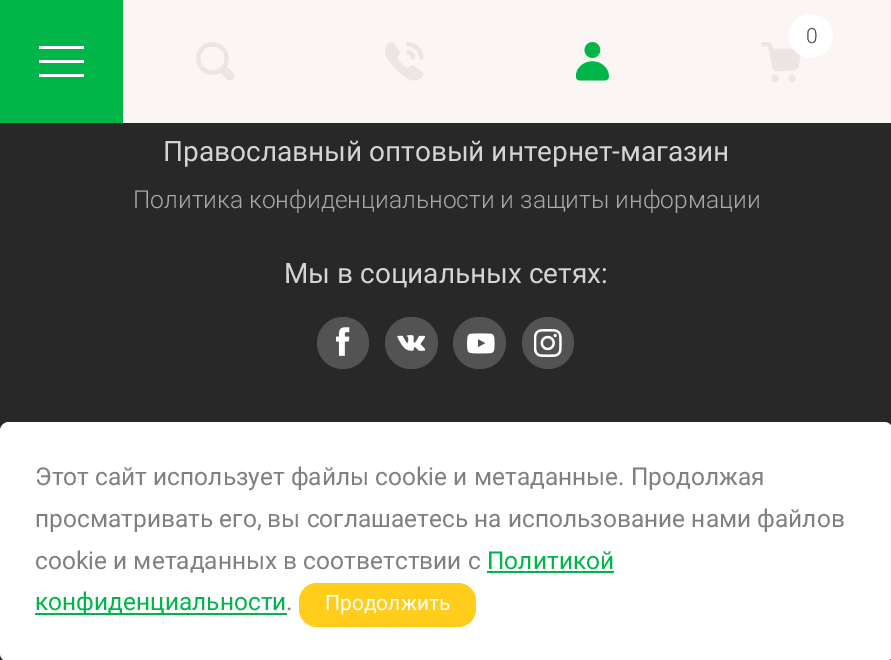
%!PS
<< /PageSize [891 660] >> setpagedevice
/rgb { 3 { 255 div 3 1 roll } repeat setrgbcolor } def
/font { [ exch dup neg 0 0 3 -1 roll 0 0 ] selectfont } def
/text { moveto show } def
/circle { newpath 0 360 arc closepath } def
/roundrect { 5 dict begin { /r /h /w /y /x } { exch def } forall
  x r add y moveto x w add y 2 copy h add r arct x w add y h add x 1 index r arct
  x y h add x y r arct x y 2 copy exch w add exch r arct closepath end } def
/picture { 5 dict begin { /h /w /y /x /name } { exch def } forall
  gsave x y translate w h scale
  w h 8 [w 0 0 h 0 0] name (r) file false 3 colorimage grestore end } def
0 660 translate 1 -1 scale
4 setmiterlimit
40 40 40 rgb
0 0 891 660 rectfill
251 245 243 rgb
123 0 768 123 rectfill
0 182 73 rgb
0 0 123 123 rectfill
gsave
39 46 45 31 rectclip
255 255 255 rgb
38 46 moveto 46 0 rlineto 0 3 rlineto -46 0 rlineto closepath 38 60 moveto 46 0 rlineto 0 3 rlineto -46 0 rlineto closepath 38 74 moveto 46 0 rlineto 0 3 rlineto -46 0 rlineto closepath fill
grestore
(img_01.rgb) 761 42 40 40 picture
255 255 255 rgb
811 36 22 circle fill
(img_02.rgb) 196 42 39 39 picture
(img_03.rgb) 385 42 39 39 picture
(img_04.rgb) 576 42 33 39 picture
83 83 83 rgb
343 343 26 circle fill
(img_05.rgb) 336 327 14 29 picture
385 317 53 52 26 roundrect fill
(img_06.rgb) 397 335 28 16 picture
453 317 53 52 26 roundrect fill
(img_07.rgb) 467 333 28 21 picture
548 343 26 circle fill
(img_08.rgb) 534 329 28 28 picture
255 255 255 rgb
0 422 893 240 9 roundrect fill
0 182 73 rgb
487 571 127 2 rectfill
35 613 252 2 rectfill
255 205 26 rgb
299 583 177 44 18 roundrect fill
/Roboto-Light 21 font
73 73 73 rgb
(0) 806 43 text
/Roboto-Regular 28 font
212 212 212 rgb
(Православный оптовый интернет-магазин) 163 161 text
/Roboto-Light 24.5 font
169 169 169 rgb
(Политика конфиденциальности и защиты информации) 133 208 text
/Roboto-Regular 28 font
212 212 212 rgb
(Мы в социальных сетях:) 284 283 text
/Roboto-Regular 24.5 font
128 128 128 rgb
(Этот сайт использует файлы cookie и метаданные. Продолжая) 35 485 text
(просматривать его, вы соглашаетесь на использование нами файлов) 35 527 text
(cookie и метаданных в соответствии с) 35 569 text
0 182 73 rgb
(Политикой) 487 569 text
(конфиденциальности) 35 610 text
128 128 128 rgb
(.) 286 610 text
/Roboto-Regular 21 font
255 255 255 rgb
(Продолжить) 325 610 text
showpage
